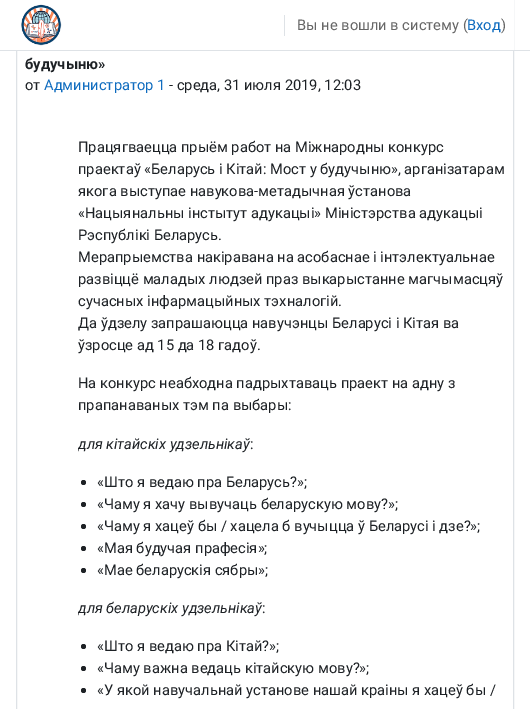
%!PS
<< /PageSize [530 709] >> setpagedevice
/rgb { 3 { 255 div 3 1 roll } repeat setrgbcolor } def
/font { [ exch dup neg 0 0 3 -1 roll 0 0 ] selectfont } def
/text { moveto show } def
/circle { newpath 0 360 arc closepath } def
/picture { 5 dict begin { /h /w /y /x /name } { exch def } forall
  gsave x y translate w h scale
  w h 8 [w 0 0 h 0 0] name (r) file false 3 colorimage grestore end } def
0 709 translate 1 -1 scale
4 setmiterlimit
255 255 255 rgb
0 0 530 709 rectfill
222 226 230 rgb
16.5 -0.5 497 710 rectstroke
255 255 255 rgb
16 0 498 50 rectfill
222 226 230 rgb
0 50 530 1 rectfill
(img_01.rgb) 21 4 41 42 picture
284 15 1 21 rectfill
29 33 37 rgb
83.5 482.5 2.5 circle fill
83.5 504.5 2.5 circle fill
83.5 526.5 2.5 circle fill
83.5 548.5 2.5 circle fill
83.5 570.5 2.5 circle fill
83.5 646.5 2.5 circle fill
83.5 668.5 2.5 circle fill
83.5 690.5 2.5 circle fill
/Roboto-Regular 14.7 font
102 102 102 rgb
(Вы не вошли в систему \() 297 30 text
15 108 191 rgb
(Вход) 467 30 text
102 102 102 rgb
(\)) 501 30 text
/Roboto-Bold 14.7 font
29 33 37 rgb
(будучыню») 25 69 text
/Roboto-Regular 14.7 font
(от) 25 90 text
15 108 191 rgb
(Администратор 1) 44 90 text
29 33 37 rgb
(- среда, 31 июля 2019, 12:03) 169 90 text
(Працягваецца прыём работ на Міжнародны конкурс) 78 152 text
(праектаў «Беларусь і Кітай: Мост у будучыню», арганізатарам) 78 174 text
(якога выступае навукова-метадычная ўстанова) 78 196 text
(«Нацыянальны інстытут адукацыі» Міністэрства адукацыі) 78 218 text
(Рэспублікі Беларусь.) 78 240 text
(Мерапрыемства накіравана на асобаснае і інтэлектуальнае) 78 262 text
(развіццё маладых людзей праз выкарыстанне магчымасцяў) 78 284 text
(сучасных інфармацыйных тэхналогій.) 78 306 text
(Да ўдзелу запрашаюцца навучэнцы Беларусі і Кітая ва) 78 328 text
(ўзросце ад 15 да 18 гадоў.) 78 350 text
(На конкурс неабходна падрыхтаваць праект на адну з) 78 388 text
(прапанаваных тэм па выбары:) 78 410 text
gsave
78 120 427 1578 rectclip
/Roboto-Italic 14.7 font
(для кітайскіх удзельнікаў) 78 449 text
grestore
(:) 250 449 text
(«Што я ведаю пра Беларусь?»;) 97 487 text
(«Чаму я хачу вывучаць беларускую мову?»;) 97 509 text
(«Чаму я хацеў бы / хацела б вучыцца ў Беларусі і дзе?»;) 97 531 text
(«Мая будучая прафесія»;) 97 553 text
(«Мае беларускія сябры»;) 97 575 text
gsave
78 120 427 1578 rectclip
/Roboto-Italic 14.7 font
(для беларускіх удзельнікаў) 78 613 text
grestore
(:) 262 613 text
(«Што я ведаю пра Кітай?»;) 97 651 text
(«Чаму важна ведаць кітайскую мову?»;) 97 673 text
(«У якой навучальнай установе нашай краіны я хацеў бы /) 97 695 text
showpage
